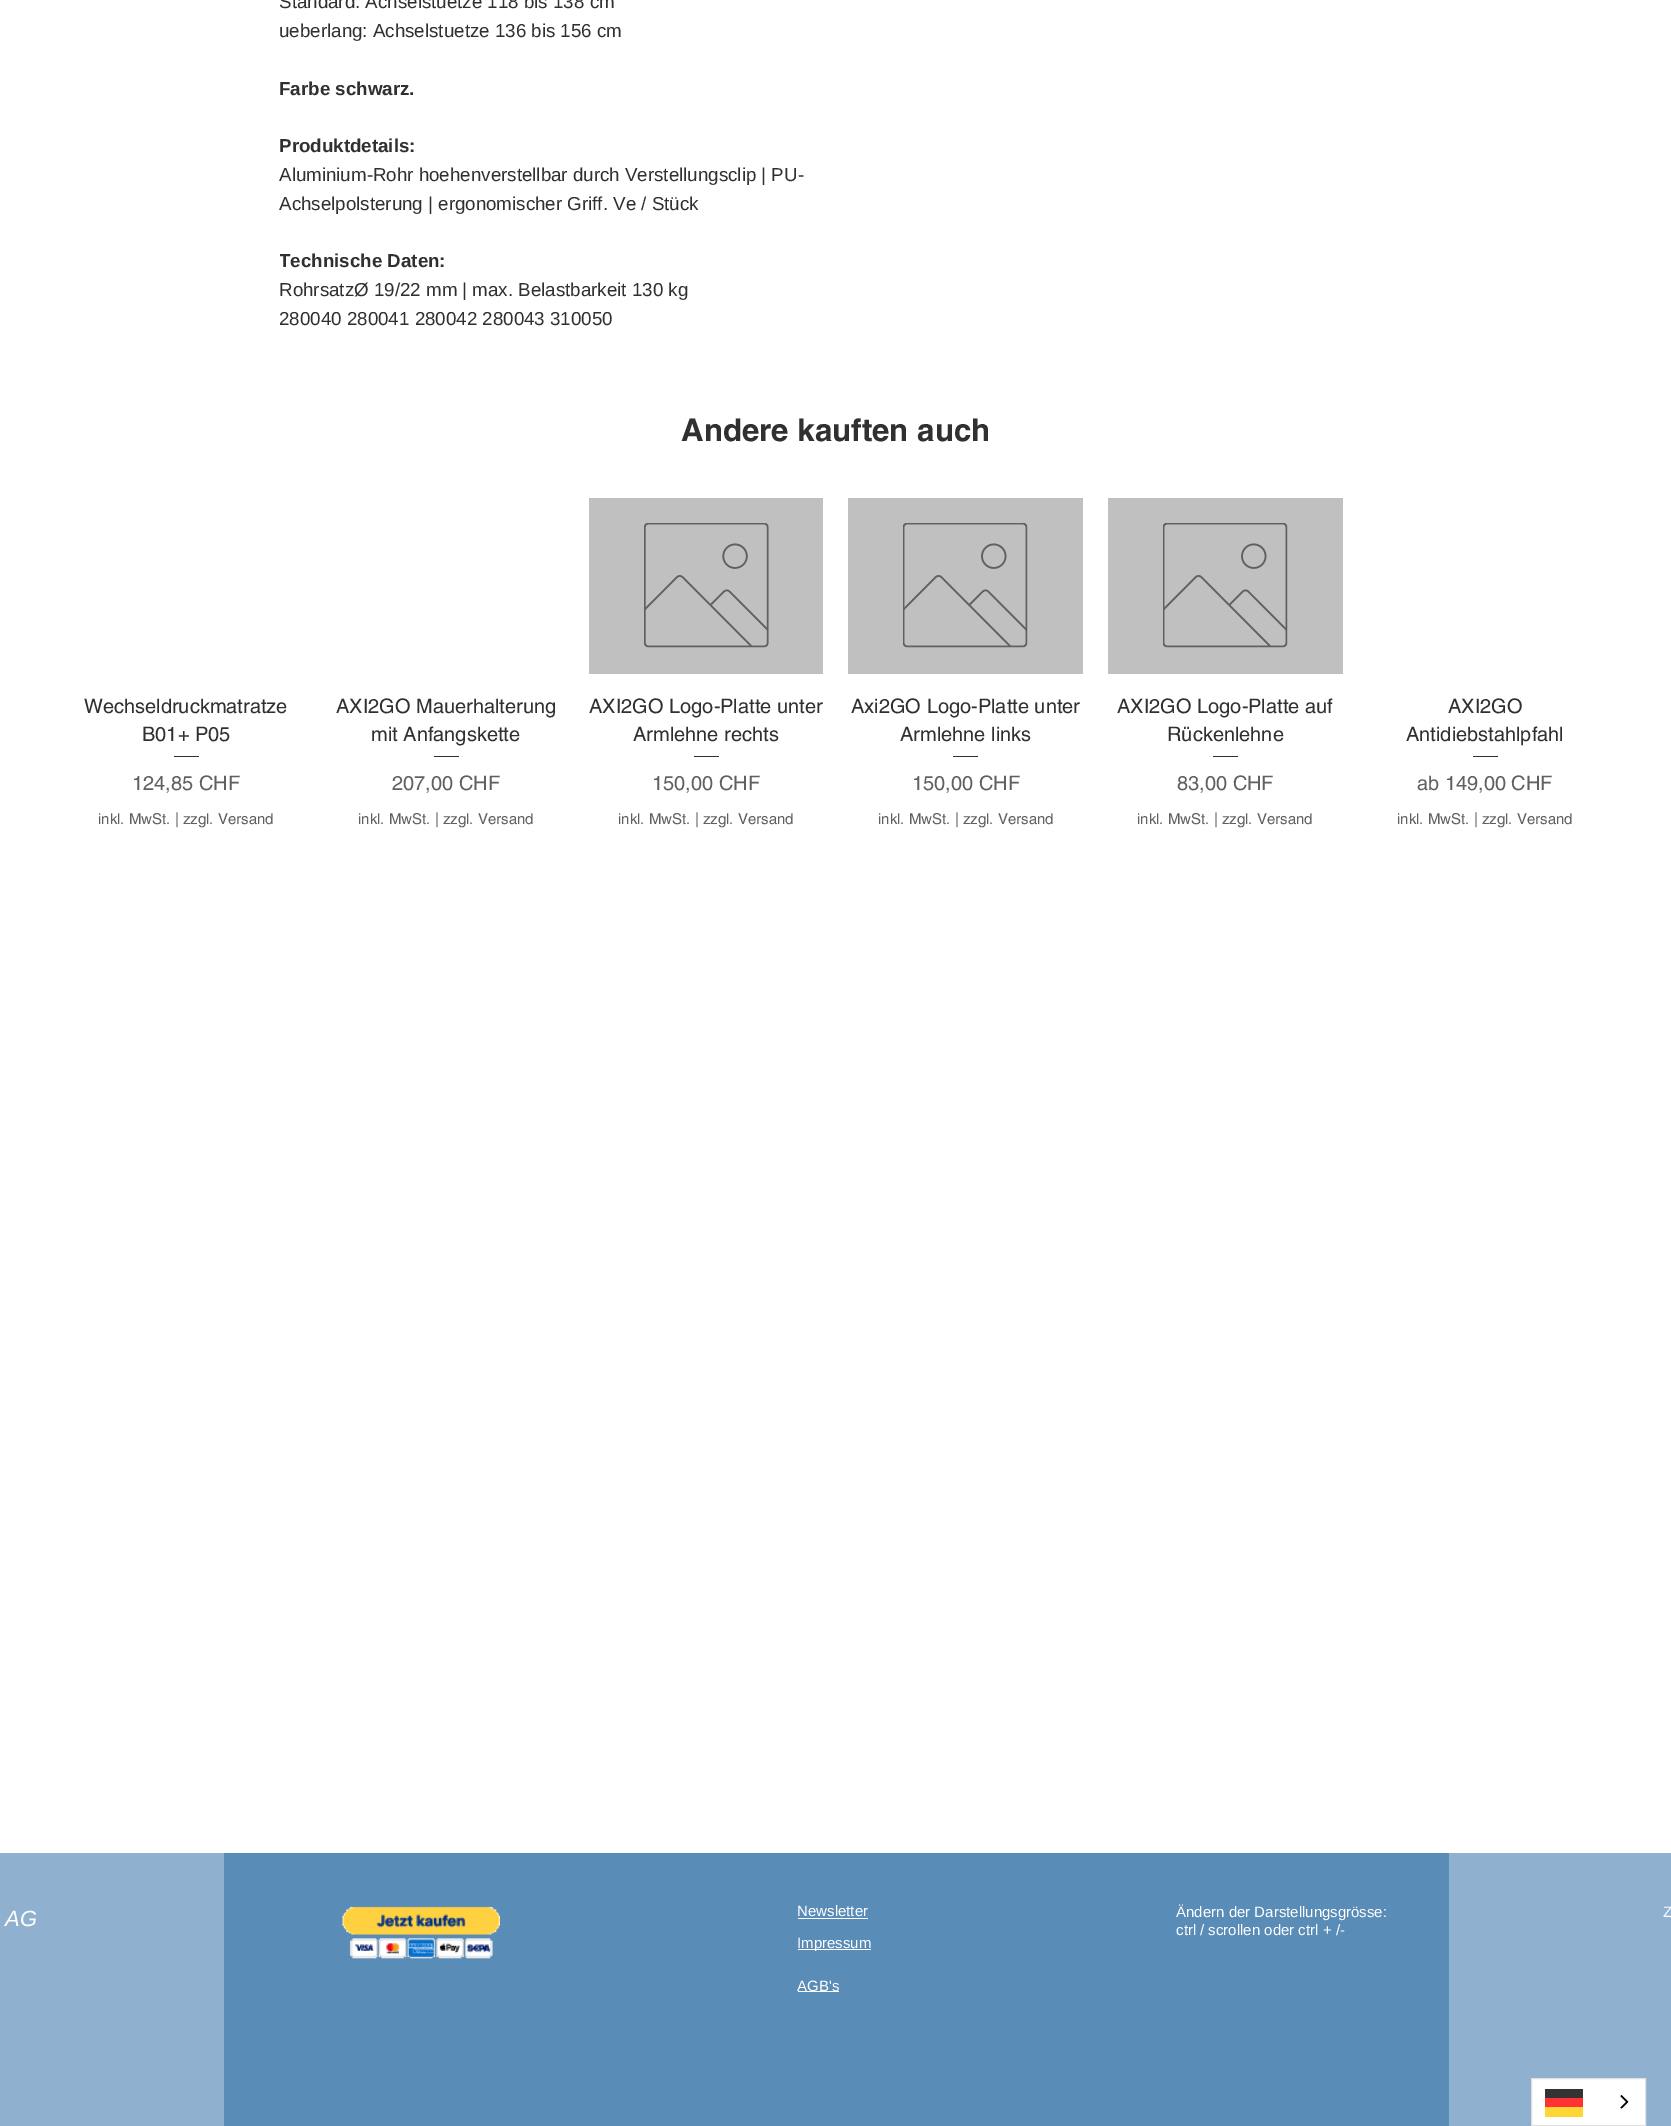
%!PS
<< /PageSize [1671 2126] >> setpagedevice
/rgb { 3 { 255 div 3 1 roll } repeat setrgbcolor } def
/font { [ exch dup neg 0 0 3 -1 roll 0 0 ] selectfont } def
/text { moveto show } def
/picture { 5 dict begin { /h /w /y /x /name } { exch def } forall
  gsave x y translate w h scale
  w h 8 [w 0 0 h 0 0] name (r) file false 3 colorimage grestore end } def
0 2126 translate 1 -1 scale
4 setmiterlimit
255 255 255 rgb
0 0 1671 2126 rectfill
48 48 48 rgb
174 756 25 1 rectfill
434 756 25 1 rectfill
192 192 192 rgb
589 498 234 176 rectfill
(img_01.rgb) 644 523 125 125 picture
48 48 48 rgb
694 756 25 1 rectfill
192 192 192 rgb
848 498 235 176 rectfill
(img_02.rgb) 903 523 125 125 picture
48 48 48 rgb
953 756 25 1 rectfill
192 192 192 rgb
1108 498 235 176 rectfill
(img_02.rgb) 1163 523 125 125 picture
48 48 48 rgb
1213 756 25 1 rectfill
1473 756 25 1 rectfill
143 177 207 rgb
0 1853 1671 273 rectfill
90 140 184 rgb
224 1853 1225 273 rectfill
(img_03.rgb) 342 1906 158 53 picture
255 255 255 rgb
798 1918 70 1 rectfill
798 1949 73 1 rectfill
798 1991 41 1 rectfill
1531.5 2078.5 moveto 114 0 rlineto 0 47 rlineto -114 0 rlineto closepath gsave fill grestore
224 224 224 rgb
stroke
255 214 51 rgb
1545 2107 38 10 rectfill
51 51 52 rgb
1545 2089 38 9 rectfill
255 51 51 rgb
1545 2098 38 9 rectfill
(img_04.rgb) 1620 2095 9 14 picture
/LiberationSans-Regular 18.75 font
48 48 48 rgb
(Standard: Achselstuetze 118 bis 138 cm) 279 8 text
(ueberlang: Achselstuetze 136 bis 156 cm) 279 37 text
/LiberationSans-Bold 18.75 font
(Farbe schwarz.) 279 95 text
(Produktdetails:) 279 152 text
/LiberationSans-Regular 18.75 font
(Aluminium-Rohr hoehenverstellbar durch Verstellungsclip | PU-) 279 181 text
(Achselpolsterung | ergonomischer Griff. Ve / Stück) 279 210 text
gsave
280 0 625 333 rectclip
/LiberationSans-Bold 18.75 font
(Technische Daten:) 279 267 text
grestore
(RohrsatzØ 19/22 mm | max. Belastbarkeit 130 kg) 279 296 text
(280040 280041 280042 280043 310050) 279 325 text
/helvetica-Bold 31.25 font
(Andere kauften auch) 681 441 text
/helvetica-Regular 20 font
(Wechseldruckmatratze) 84 713 text
(B01+ P05) 142 741 text
96 96 96 rgb
(124,85 CHF) 132 790 text
/helvetica-Regular 15 font
(inkl. MwSt. | zzgl. Versand) 98 824 text
/helvetica-Regular 20 font
48 48 48 rgb
(AXI2GO Mauerhalterung) 336 713 text
(mit Anfangskette) 371 741 text
96 96 96 rgb
(207,00 CHF) 392 790 text
/helvetica-Regular 15 font
(inkl. MwSt. | zzgl. Versand) 358 824 text
/helvetica-Regular 20 font
48 48 48 rgb
(AXI2GO Logo-Platte unter) 589 713 text
(Armlehne rechts) 633 741 text
96 96 96 rgb
(150,00 CHF) 652 790 text
/helvetica-Regular 15 font
(inkl. MwSt. | zzgl. Versand) 618 824 text
/helvetica-Regular 20 font
48 48 48 rgb
(Axi2GO Logo-Platte unter) 851 713 text
(Armlehne links) 900 741 text
96 96 96 rgb
(150,00 CHF) 912 790 text
/helvetica-Regular 15 font
(inkl. MwSt. | zzgl. Versand) 878 824 text
/helvetica-Regular 20 font
48 48 48 rgb
(AXI2GO Logo-Platte auf) 1117 713 text
(Rückenlehne) 1167 741 text
96 96 96 rgb
(83,00 CHF) 1177 790 text
/helvetica-Regular 15 font
(inkl. MwSt. | zzgl. Versand) 1137 824 text
/helvetica-Regular 20 font
48 48 48 rgb
(AXI2GO) 1448 713 text
(Antidiebstahlpfahl) 1406 741 text
96 96 96 rgb
(ab 149,00 CHF) 1417 790 text
/helvetica-Regular 15 font
(inkl. MwSt. | zzgl. Versand) 1397 824 text
/LiberationSans-Italic 22 font
255 255 255 rgb
(AG) 5 1926 text
/LiberationSans-Regular 15 font
(Newsletter) 797 1916 text
(Impressum) 797 1948 text
(AGB's) 797 1991 text
(Ändern der Darstellungsgrösse:) 1176 1917 text
(ctrl / scrollen oder ctrl + /-) 1176 1935 text
1663 1917 moveto 2 0 (Z) ashow
showpage
